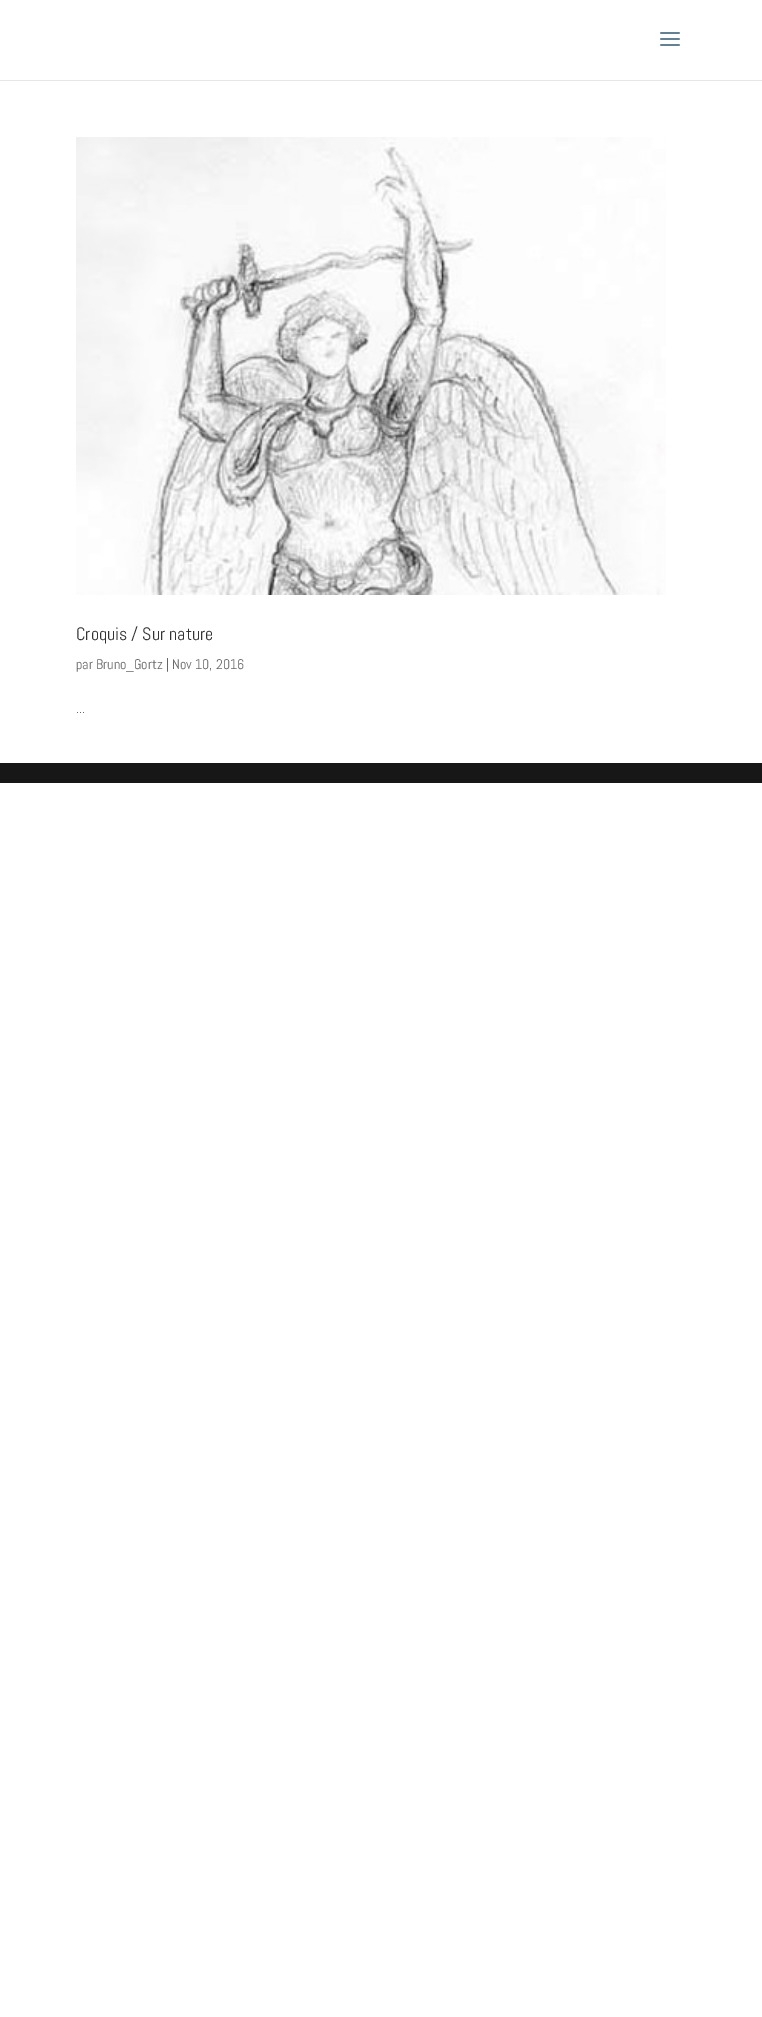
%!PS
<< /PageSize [762 2017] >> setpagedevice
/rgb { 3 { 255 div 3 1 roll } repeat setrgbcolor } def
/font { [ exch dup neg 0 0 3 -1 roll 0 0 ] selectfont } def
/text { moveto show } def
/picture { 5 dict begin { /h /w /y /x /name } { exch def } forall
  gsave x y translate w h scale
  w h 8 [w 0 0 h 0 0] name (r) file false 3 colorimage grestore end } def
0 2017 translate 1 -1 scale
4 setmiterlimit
255 255 255 rgb
0 0 762 2017 rectfill
230 230 230 rgb
0 80 762 1 rectfill
(img_01.rgb) 660 32 20 14 picture
(img_02.rgb) 76 137 590 458 picture
23 23 23 rgb
0 763 762 20 rectfill
/Abel-Regular 18 font
51 51 51 rgb
(Croquis / Sur nature) 76 640 text
/Abel-Regular 14 font
102 102 102 rgb
(par Bruno_Gortz | Nov 10, 2016) 76 669 text
(...) 76 713 text
showpage
